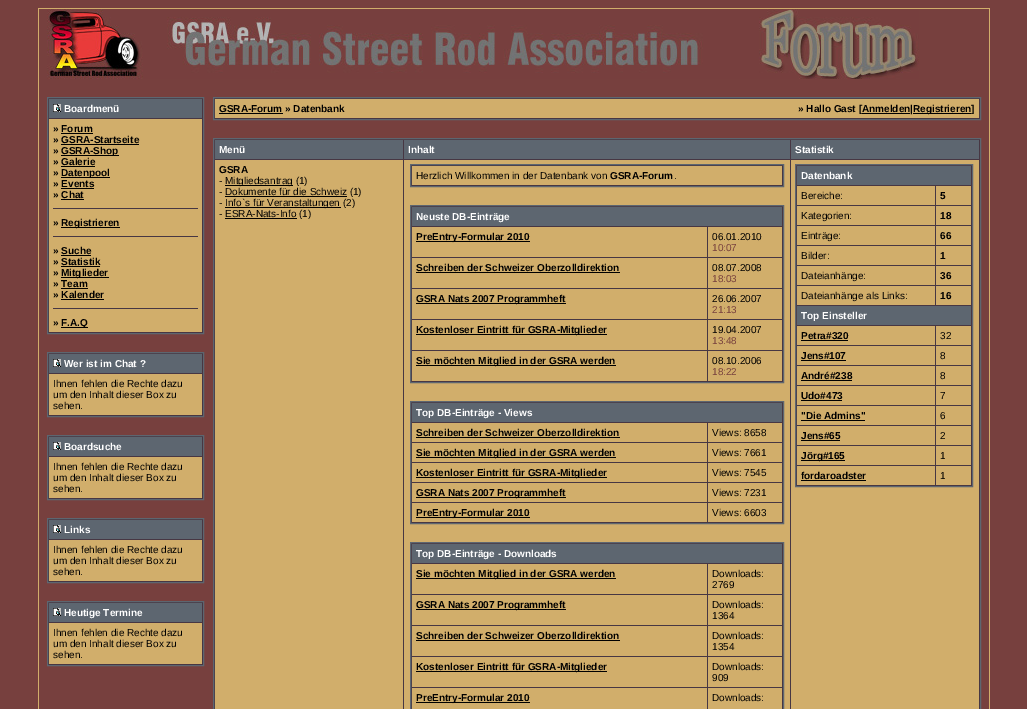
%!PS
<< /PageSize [1027 709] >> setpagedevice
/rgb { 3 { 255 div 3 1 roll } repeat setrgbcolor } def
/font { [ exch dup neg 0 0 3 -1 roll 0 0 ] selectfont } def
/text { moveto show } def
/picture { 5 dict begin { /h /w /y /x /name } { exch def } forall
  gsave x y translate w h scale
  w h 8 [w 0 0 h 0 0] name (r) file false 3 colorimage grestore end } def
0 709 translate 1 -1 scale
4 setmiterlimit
119 64 62 rgb
0 0 1027 709 rectfill
209 174 107 rgb
38 8 952 701 rectfill
119 64 62 rgb
39 9 950 700 rectfill
(img_01.rgb) 47 9 872 70 picture
71 55 67 rgb
47.5 97.5 moveto 156 0 rlineto 0 236 rlineto -156 0 rlineto closepath gsave fill grestore
93 102 112 rgb
stroke
49 99 153 19 rectfill
(img_02.rgb) 53 104 8 8 picture
209 174 107 rgb
49 119 153 213 rectfill
0 0 0 rgb
61 133 32 1 rectfill
61 144 78 1 rectfill
61 155 58 1 rectfill
61 166 34 1 rectfill
61 177 49 1 rectfill
61 188 33 1 rectfill
61 199 23 1 rectfill
71 55 67 rgb
53 208 145 1 rectfill
0 0 0 rgb
61 227 59 1 rectfill
71 55 67 rgb
53 236 145 1 rectfill
0 0 0 rgb
61 255 30 1 rectfill
61 266 39 1 rectfill
61 277 48 1 rectfill
61 288 27 1 rectfill
61 299 43 1 rectfill
71 55 67 rgb
53 308 145 1 rectfill
0 0 0 rgb
61 327 27 1 rectfill
71 55 67 rgb
47.5 352.5 moveto 156 0 rlineto 0 64 rlineto -156 0 rlineto closepath gsave fill grestore
93 102 112 rgb
stroke
49 354 153 19 rectfill
(img_02.rgb) 53 359 8 8 picture
209 174 107 rgb
49 374 153 41 rectfill
71 55 67 rgb
47.5 435.5 moveto 156 0 rlineto 0 64 rlineto -156 0 rlineto closepath gsave fill grestore
93 102 112 rgb
stroke
49 437 153 19 rectfill
(img_02.rgb) 53 442 8 8 picture
209 174 107 rgb
49 457 153 41 rectfill
71 55 67 rgb
47.5 518.5 moveto 156 0 rlineto 0 64 rlineto -156 0 rlineto closepath gsave fill grestore
93 102 112 rgb
stroke
49 520 153 19 rectfill
(img_02.rgb) 53 525 8 8 picture
209 174 107 rgb
49 540 153 41 rectfill
71 55 67 rgb
47.5 601.5 moveto 156 0 rlineto 0 64 rlineto -156 0 rlineto closepath gsave fill grestore
93 102 112 rgb
stroke
49 603 153 19 rectfill
(img_02.rgb) 53 608 8 8 picture
209 174 107 rgb
49 623 153 41 rectfill
71 55 67 rgb
213.5 97.5 moveto 767 0 rlineto 0 22 rlineto -767 0 rlineto closepath gsave fill grestore
93 102 112 rgb
stroke
209 174 107 rgb
215 99 764 19 rectfill
0 0 0 rgb
219 113 64 1 rectfill
862 113 48 1 rectfill
913 113 58 1 rectfill
71 55 67 rgb
213.5 138.5 moveto 767 0 rlineto 0 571 rlineto -767 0 rlineto closepath gsave fill grestore
93 102 112 rgb
stroke
215 140 188 19 rectfill
404 140 386 19 rectfill
791 140 188 19 rectfill
209 174 107 rgb
215 160 188 549 rectfill
0 0 0 rgb
225 185 68 1 rectfill
225 196 122 1 rectfill
225 207 116 1 rectfill
225 218 72 1 rectfill
209 174 107 rgb
404 160 386 549 rectfill
71 55 67 rgb
410.5 164.5 moveto 373 0 rlineto 0 22 rlineto -373 0 rlineto closepath gsave fill grestore
93 102 112 rgb
stroke
209 174 107 rgb
412 166 370 19 rectfill
71 55 67 rgb
410.5 205.5 moveto 373 0 rlineto 0 177 rlineto -373 0 rlineto closepath gsave fill grestore
93 102 112 rgb
stroke
412 207 370 19 rectfill
209 174 107 rgb
412 227 295 30 rectfill
0 0 0 rgb
416 241 114 1 rectfill
209 174 107 rgb
708 227 74 30 rectfill
412 258 295 30 rectfill
0 0 0 rgb
416 272 204 1 rectfill
209 174 107 rgb
708 258 74 30 rectfill
412 289 295 30 rectfill
0 0 0 rgb
416 303 150 1 rectfill
209 174 107 rgb
708 289 74 30 rectfill
412 320 295 30 rectfill
0 0 0 rgb
416 334 191 1 rectfill
209 174 107 rgb
708 320 74 30 rectfill
412 351 295 30 rectfill
0 0 0 rgb
416 365 200 1 rectfill
209 174 107 rgb
708 351 74 30 rectfill
71 55 67 rgb
410.5 401.5 moveto 373 0 rlineto 0 122 rlineto -373 0 rlineto closepath gsave fill grestore
93 102 112 rgb
stroke
412 403 370 19 rectfill
209 174 107 rgb
412 423 295 19 rectfill
0 0 0 rgb
416 437 204 1 rectfill
209 174 107 rgb
708 423 74 19 rectfill
412 443 295 19 rectfill
0 0 0 rgb
416 457 200 1 rectfill
209 174 107 rgb
708 443 74 19 rectfill
412 463 295 19 rectfill
0 0 0 rgb
416 477 191 1 rectfill
209 174 107 rgb
708 463 74 19 rectfill
412 483 295 19 rectfill
0 0 0 rgb
416 497 150 1 rectfill
209 174 107 rgb
708 483 74 19 rectfill
412 503 295 19 rectfill
0 0 0 rgb
416 517 114 1 rectfill
209 174 107 rgb
708 503 74 19 rectfill
71 55 67 rgb
410.5 542.5 moveto 373 0 rlineto 0 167 rlineto -373 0 rlineto closepath gsave fill grestore
93 102 112 rgb
stroke
412 544 370 19 rectfill
209 174 107 rgb
412 564 295 30 rectfill
0 0 0 rgb
416 578 200 1 rectfill
209 174 107 rgb
708 564 74 30 rectfill
412 595 295 30 rectfill
0 0 0 rgb
416 609 150 1 rectfill
209 174 107 rgb
708 595 74 30 rectfill
412 626 295 30 rectfill
0 0 0 rgb
416 640 204 1 rectfill
209 174 107 rgb
708 626 74 30 rectfill
412 657 295 30 rectfill
0 0 0 rgb
416 671 191 1 rectfill
209 174 107 rgb
708 657 74 30 rectfill
412 688 295 21 rectfill
0 0 0 rgb
416 702 114 1 rectfill
209 174 107 rgb
708 688 74 21 rectfill
791 160 188 549 rectfill
71 55 67 rgb
795.5 164.5 moveto 177 0 rlineto 0 322 rlineto -177 0 rlineto closepath gsave fill grestore
93 102 112 rgb
stroke
797 166 174 19 rectfill
209 174 107 rgb
797 186 138 19 rectfill
936 186 35 19 rectfill
797 206 138 19 rectfill
936 206 35 19 rectfill
797 226 138 19 rectfill
936 226 35 19 rectfill
797 246 138 19 rectfill
936 246 35 19 rectfill
797 266 138 19 rectfill
936 266 35 19 rectfill
797 286 138 19 rectfill
936 286 35 19 rectfill
93 102 112 rgb
797 306 174 19 rectfill
209 174 107 rgb
797 326 138 19 rectfill
0 0 0 rgb
801 340 47 1 rectfill
209 174 107 rgb
936 326 35 19 rectfill
797 346 138 19 rectfill
0 0 0 rgb
801 360 45 1 rectfill
209 174 107 rgb
936 346 35 19 rectfill
797 366 138 19 rectfill
0 0 0 rgb
801 380 51 1 rectfill
209 174 107 rgb
936 366 35 19 rectfill
797 386 138 19 rectfill
0 0 0 rgb
801 400 41 1 rectfill
209 174 107 rgb
936 386 35 19 rectfill
797 406 138 19 rectfill
0 0 0 rgb
801 420 64 1 rectfill
209 174 107 rgb
936 406 35 19 rectfill
797 426 138 19 rectfill
0 0 0 rgb
801 440 39 1 rectfill
209 174 107 rgb
936 426 35 19 rectfill
797 446 138 19 rectfill
0 0 0 rgb
801 460 44 1 rectfill
209 174 107 rgb
936 446 35 19 rectfill
797 466 138 19 rectfill
0 0 0 rgb
801 480 65 1 rectfill
209 174 107 rgb
936 466 35 19 rectfill
/LiberationSans-Bold 10 font
255 255 255 rgb
(Boardmenü) 64 112 text
0 0 0 rgb
(» Forum) 53 132 text
(» GSRA-Startseite) 53 143 text
(») 53 154 text
(GSRA-Shop) 61 154 text
(» Galerie) 53 165 text
(») 53 176 text
(Datenpool) 61 176 text
(» Events) 53 187 text
(» Chat) 53 198 text
(») 53 226 text
(Registrieren) 61 226 text
(» Suche) 53 254 text
(» Statistik) 53 265 text
(») 53 276 text
(Mitglieder) 61 276 text
(» Team) 53 287 text
(» Kalender) 53 298 text
(») 53 326 text
(F.A.Q) 61 326 text
255 255 255 rgb
(Wer ist im Chat ?) 64 367 text
/LiberationSans-Regular 10 font
0 0 0 rgb
(Ihnen fehlen die Rechte dazu) 53 387 text
(um den Inhalt dieser Box zu) 53 398 text
(sehen.) 53 409 text
/LiberationSans-Bold 10 font
255 255 255 rgb
(Boardsuche) 64 450 text
/LiberationSans-Regular 10 font
0 0 0 rgb
(Ihnen fehlen die Rechte dazu) 53 470 text
(um den Inhalt dieser Box zu) 53 481 text
(sehen.) 53 492 text
/LiberationSans-Bold 10 font
255 255 255 rgb
(Links) 64 533 text
/LiberationSans-Regular 10 font
0 0 0 rgb
(Ihnen fehlen die Rechte dazu) 53 553 text
(um den Inhalt dieser Box zu) 53 564 text
(sehen.) 53 575 text
/LiberationSans-Bold 10 font
255 255 255 rgb
(Heutige Termine) 64 616 text
/LiberationSans-Regular 10 font
0 0 0 rgb
(Ihnen fehlen die Rechte dazu) 53 636 text
(um den Inhalt dieser Box zu) 53 647 text
(sehen.) 53 658 text
/LiberationSans-Bold 10 font
(GSRA-Forum » Datenbank) 219 112 text
(» Hallo Gast [Anmelden|) 798 112 text
(Registrieren]) 913 112 text
255 255 255 rgb
(Menü) 219 153 text
(Inhalt) 408 153 text
(Statistik) 795 153 text
0 0 0 rgb
(GSRA) 219 173 text
/LiberationSans-Regular 10 font
(-) 219 184 text
(Mitgliedsantrag \(1\)) 225 184 text
(- Dokumente für die Schweiz \(1\)) 219 195 text
(-) 219 206 text
(Info`s für Veranstaltungen \(2\)) 225 206 text
(- ESRA-Nats-Info \(1\)) 219 217 text
(Herzlich Willkommen in der Datenbank von) 416 179 text
/LiberationSans-Bold 10 font
(GSRA-Forum) 610 179 text
/LiberationSans-Regular 10 font
(.) 674 179 text
/LiberationSans-Bold 10 font
255 255 255 rgb
(Neuste DB-Einträge) 416 220 text
0 0 0 rgb
(PreEntry-Formular 2010) 416 240 text
/LiberationSans-Regular 10 font
(06.01.2010) 712 240 text
119 64 62 rgb
(10:07) 712 251 text
/LiberationSans-Bold 10 font
0 0 0 rgb
(Schreiben der Schweizer Oberzolldirektion) 416 271 text
/LiberationSans-Regular 10 font
(08.07.2008) 712 271 text
119 64 62 rgb
(18:03) 712 282 text
/LiberationSans-Bold 10 font
0 0 0 rgb
(GSRA Nats 2007 Programmheft) 416 302 text
/LiberationSans-Regular 10 font
(26.06.2007) 712 302 text
119 64 62 rgb
(21:13) 712 313 text
/LiberationSans-Bold 10 font
0 0 0 rgb
(Kostenloser Eintritt für GSRA-Mitglieder) 416 333 text
/LiberationSans-Regular 10 font
(19.04.2007) 712 333 text
119 64 62 rgb
(13:48) 712 344 text
/LiberationSans-Bold 10 font
0 0 0 rgb
(Sie möchten Mitglied in der GSRA werden) 416 364 text
/LiberationSans-Regular 10 font
(08.10.2006) 712 364 text
119 64 62 rgb
(18:22) 712 375 text
/LiberationSans-Bold 10 font
255 255 255 rgb
(Top DB-Einträge - Views) 416 416 text
0 0 0 rgb
(Schreiben der Schweizer Oberzolldirektion) 416 436 text
/LiberationSans-Regular 10 font
(Views: 8658) 712 436 text
/LiberationSans-Bold 10 font
(Sie möchten Mitglied in der GSRA werden) 416 456 text
/LiberationSans-Regular 10 font
(Views: 7661) 712 456 text
/LiberationSans-Bold 10 font
(Kostenloser Eintritt für GSRA-Mitglieder) 416 476 text
/LiberationSans-Regular 10 font
(Views: 7545) 712 476 text
/LiberationSans-Bold 10 font
(GSRA Nats 2007 Programmheft) 416 496 text
/LiberationSans-Regular 10 font
(Views: 7231) 712 496 text
/LiberationSans-Bold 10 font
(PreEntry-Formular 2010) 416 516 text
/LiberationSans-Regular 10 font
(Views: 6603) 712 516 text
/LiberationSans-Bold 10 font
255 255 255 rgb
(Top DB-Einträge - Downloads) 416 557 text
0 0 0 rgb
(Sie möchten Mitglied in der GSRA werden) 416 577 text
/LiberationSans-Regular 10 font
(Downloads:) 712 577 text
(2769) 712 588 text
/LiberationSans-Bold 10 font
(GSRA Nats 2007 Programmheft) 416 608 text
/LiberationSans-Regular 10 font
(Downloads:) 712 608 text
(1364) 712 619 text
/LiberationSans-Bold 10 font
(Schreiben der Schweizer Oberzolldirektion) 416 639 text
/LiberationSans-Regular 10 font
(Downloads:) 712 639 text
(1354) 712 650 text
/LiberationSans-Bold 10 font
(Kostenloser Eintritt für GSRA-Mitglieder) 416 670 text
/LiberationSans-Regular 10 font
(Downloads:) 712 670 text
(909) 712 681 text
/LiberationSans-Bold 10 font
(PreEntry-Formular 2010) 416 701 text
/LiberationSans-Regular 10 font
(Downloads:) 712 701 text
/LiberationSans-Bold 10 font
255 255 255 rgb
(Datenbank) 801 179 text
/LiberationSans-Regular 10 font
0 0 0 rgb
(Bereiche:) 801 199 text
/LiberationSans-Bold 10 font
(5) 940 199 text
/LiberationSans-Regular 10 font
(Kategorien:) 801 219 text
/LiberationSans-Bold 10 font
(18) 940 219 text
/LiberationSans-Regular 10 font
(Einträge:) 801 239 text
/LiberationSans-Bold 10 font
(66) 940 239 text
/LiberationSans-Regular 10 font
(Bilder:) 801 259 text
/LiberationSans-Bold 10 font
(1) 940 259 text
/LiberationSans-Regular 10 font
(Dateianhänge:) 801 279 text
/LiberationSans-Bold 10 font
(36) 940 279 text
/LiberationSans-Regular 10 font
(Dateianhänge als Links:) 801 299 text
/LiberationSans-Bold 10 font
(16) 940 299 text
255 255 255 rgb
(Top Einsteller) 801 319 text
0 0 0 rgb
(Petra#320) 801 339 text
/LiberationSans-Regular 10 font
(32) 940 339 text
/LiberationSans-Bold 10 font
(Jens#107) 801 359 text
/LiberationSans-Regular 10 font
(8) 940 359 text
/LiberationSans-Bold 10 font
(André#238) 801 379 text
/LiberationSans-Regular 10 font
(8) 940 379 text
/LiberationSans-Bold 10 font
(Udo#473) 801 399 text
/LiberationSans-Regular 10 font
(7) 940 399 text
/LiberationSans-Bold 10 font
("Die Admins") 801 419 text
/LiberationSans-Regular 10 font
(6) 940 419 text
/LiberationSans-Bold 10 font
(Jens#65) 801 439 text
/LiberationSans-Regular 10 font
(2) 940 439 text
/LiberationSans-Bold 10 font
(Jörg#165) 801 459 text
/LiberationSans-Regular 10 font
(1) 940 459 text
/LiberationSans-Bold 10 font
(fordaroadster) 801 479 text
/LiberationSans-Regular 10 font
(1) 940 479 text
showpage
